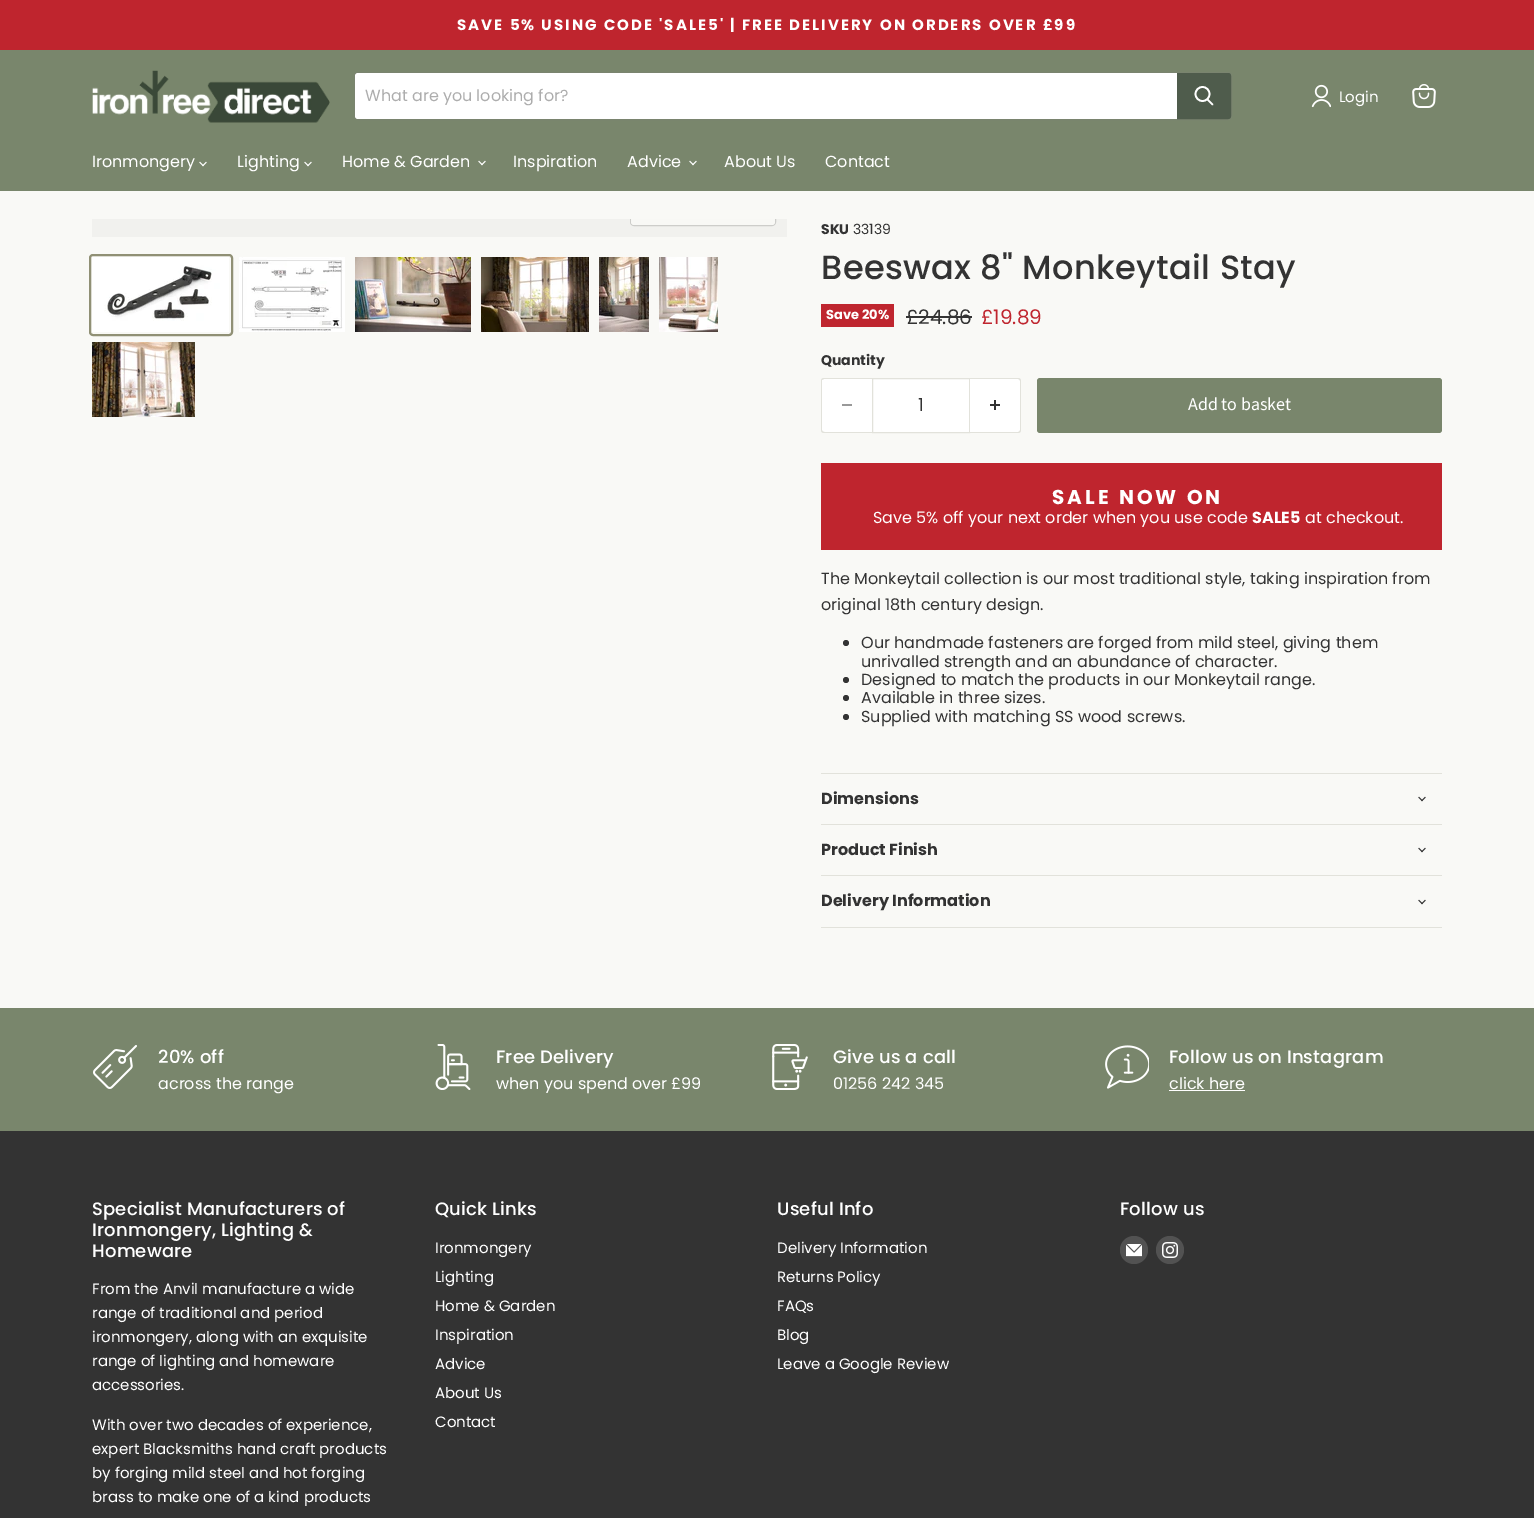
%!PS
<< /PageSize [1534 1518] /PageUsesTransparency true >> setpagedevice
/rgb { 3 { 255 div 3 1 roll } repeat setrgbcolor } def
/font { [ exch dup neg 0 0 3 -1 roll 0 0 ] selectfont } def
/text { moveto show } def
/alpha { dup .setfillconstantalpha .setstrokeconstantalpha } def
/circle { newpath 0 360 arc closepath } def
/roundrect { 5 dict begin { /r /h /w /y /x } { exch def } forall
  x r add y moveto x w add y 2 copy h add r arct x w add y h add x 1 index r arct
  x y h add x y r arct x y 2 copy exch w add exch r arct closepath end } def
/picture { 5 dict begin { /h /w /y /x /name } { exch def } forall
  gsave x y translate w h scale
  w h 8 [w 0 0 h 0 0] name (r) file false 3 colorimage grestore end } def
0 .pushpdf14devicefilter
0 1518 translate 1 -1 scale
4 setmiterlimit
249 249 246 rgb
0 0 1534 1518 rectfill
191 37 46 rgb
0 0 1534 50 rectfill
121 134 108 rgb
0 50 1534 141 rectfill
(img_01.rgb) 92 70 238 53 picture
122 132 111 rgb
354.5 72.5 877 47 3.5 roundrect stroke
255 255 255 rgb
358 73 moveto 819 0 rlineto 0 46 rlineto -819 0 rlineto -1.5 0 -3 -1.5 -3 -3 rcurveto 0 -40 rlineto 0 -1.5 1.5 -3 3 -3 rcurveto closepath fill
79 92 76 rgb
1177.5 73.5 moveto 50.5 0 rlineto 1.5 0 2.5 1 2.5 2.5 rcurveto 0 40 rlineto 0 1.5 -1 2.5 -2.5 2.5 rcurveto -50.5 0 rlineto closepath gsave fill grestore
stroke
255 255 255 rgb
1.7 setlinewidth
1 setlinecap
1212.5 104.5 moveto -5 -5 rlineto stroke
0 setlinecap
1202.5 94 7 circle stroke
(img_02.rgb) 1311 84 20 24 picture
(img_03.rgb) 1412 84 24 24 picture
(img_04.rgb) 199 161 8 6 picture
(img_04.rgb) 304 161 8 6 picture
(img_04.rgb) 478 160 8 6 picture
(img_04.rgb) 689 160 8 6 picture
241 241 238 rgb
92 219 695 18 rectfill
gsave
92 219 695 18 rectclip
205 205 202 rgb
1 setlinewidth
630.5 196.5 145 29 3.5 roundrect stroke
grestore
0.9 alpha
249 249 246 rgb
631 219 moveto 144 0 rlineto 0 3 rlineto 0 1.5 -1.5 3 -3 3 rcurveto -138 0 rlineto -1.5 0 -3 -1.5 -3 -3 rcurveto closepath fill
1 alpha
144 144 117 rgb
2 setlinewidth
90 255 142 80 3 roundrect stroke
(img_05.rgb) 92 257 137 75 picture
(img_06.rgb) 239 257 106 75 picture
(img_07.rgb) 355 257 116 75 picture
(img_08.rgb) 481 257 108 75 picture
(img_09.rgb) 599 257 50 75 picture
(img_10.rgb) 659 257 59 75 picture
(img_11.rgb) 92 342 103 75 picture
191 38 47 rgb
821 304 73 23 rectfill
51 51 51 rgb
906 316 66 2 rectfill
255 255 255 rgb
824 378 moveto 48 0 rlineto 0 55 rlineto -48 0 rlineto -1.5 0 -3 -1.5 -3 -3 rcurveto 0 -49 rlineto 0 -1.5 1.5 -3 3 -3 rcurveto closepath fill
226 226 219 rgb
824 378 moveto 48 0 rlineto 0 55 rlineto -48 0 rlineto -2 0 -3 -1 -3 -3 rcurveto 0 -49 rlineto 0 -2 1 -3 3 -3 rcurveto closepath 824 379 moveto 48 0 rlineto 0 53 rlineto -40 0 rlineto -4 0 -10 1 -10 -2 rcurveto 0 -50 rlineto closepath eofill
153 153 153 rgb
842 404 10 2 rectfill
255 255 255 rgb
872.5 378.5 moveto 97 0 rlineto 0 54 rlineto -97 0 rlineto closepath gsave fill grestore
226 226 219 rgb
1 setlinewidth
stroke
255 255 255 rgb
970 378 moveto 48 0 rlineto 1.5 0 3 1.5 3 3 rcurveto 0 49 rlineto 0 1.5 -1.5 3 -3 3 rcurveto -48 0 rlineto closepath fill
226 226 219 rgb
970 378 moveto 48 0 rlineto 2 0 3 1 3 3 rcurveto 0 49 rlineto 0 2 -1 3 -3 3 rcurveto -48 0 rlineto closepath 970 379 moveto 48 0 rlineto 1 0 2 1 2 2 rcurveto 0 49 rlineto 0 1 -1 2 -2 2 rcurveto -48 0 rlineto closepath eofill
(img_12.rgb) 990 400 10 10 picture
121 134 108 rgb
1037 378 405 55 3 roundrect fill
191 37 46 rgb
821 463 621 87 rectfill
51 51 51 rgb
846 643 3 circle fill
846 680 3 circle fill
846 698 3 circle fill
846 717 3 circle fill
226 226 219 rgb
821 773 621 1 rectfill
821 824 621 1 rectfill
(img_13.rgb) 1418 796 8 6 picture
821 875 621 1 rectfill
(img_13.rgb) 1418 847 8 6 picture
821 927 621 1 rectfill
(img_13.rgb) 1418 899 8 6 picture
121 134 108 rgb
0 1008 1534 123 rectfill
(img_14.rgb) 93 1045 44 44 picture
(img_15.rgb) 435 1044 36 46 picture
(img_16.rgb) 772 1044 36 46 picture
(img_17.rgb) 1105 1045 44 44 picture
255 255 255 rgb
1169 1090 76 1 rectfill
51 51 51 rgb
0 1131 1534 387 rectfill
82 82 82 rgb
1134 1250 14 circle fill
(img_18.rgb) 1126 1244 16 13 picture
1170 1250 14 circle fill
(img_19.rgb) 1162 1242 16 16 picture
/Poppins-Bold 15 font
255 255 255 rgb
457 30 moveto 2 0 (SAVE 5% USING CODE 'SALE5' | FREE DELIVERY ON ORDERS OVER £99) ashow
/Poppins-Regular 16 font
173 173 173 rgb
(What are you looking for?) 365 101 text
/Poppins-Regular 15 font
255 255 255 rgb
(Login) 1339 102 text
/Poppins-Regular 16 font
(Ironmongery) 92 167 text
(Lighting) 237 167 text
(Home & Garden) 342 167 text
(Inspiration) 513 167 text
(Advice) 627 167 text
(About Us) 724 167 text
(Contact) 825 167 text
/Poppins-Bold 14 font
51 51 51 rgb
(SKU) 821 234 text
/Poppins-Regular 14 font
(33139) 853 234 text
/Poppins-Medium 33.6 font
821 279 moveto 0.35 0 (Beeswax 8" Monkeytail Stay) ashow
/Poppins-Bold 13 font
255 255 255 rgb
(Save 20%) 826 319 text
/Poppins-Regular 20 font
51 51 51 rgb
(£24.86) 906 324 text
191 38 47 rgb
(£19.89) 981 324 text
/Poppins-Bold 14 font
51 51 51 rgb
(Quantity) 821 365 text
/Poppins-Regular 18 font
(1) 918 411 text
/SourceSansPro-Regular 18 font
255 255 255 rgb
(Add to basket) 1188 410 text
/Poppins-Bold 20 font
1052 504 moveto 3 0 (SALE NOW ON) ashow
/Poppins-Regular 16 font
(Save 5% off your next order when you use code) 873 523 text
/Poppins-Bold 16 font
(SALE5) 1252 523 text
/Poppins-Regular 16 font
(at checkout.) 1305 523 text
51 51 51 rgb
(The Monkeytail collection is our most traditional style, taking inspiration from) 821 584 text
(original 18th century design.) 821 610 text
(Our handmade fasteners are forged from mild steel, giving them) 861 648 text
(unrivalled strength and an abundance of character.) 861 667 text
(Designed to match the products in our Monkeytail range.) 861 685 text
(Available in three sizes.) 861 703 text
(Supplied with matching SS wood screws.) 861 722 text
/Poppins-Bold 16 font
(Dimensions) 821 804 text
(Product Finish) 821 855 text
(Delivery Information) 821 906 text
/Poppins-Medium 18 font
255 255 255 rgb
158 1063 moveto 0.2 0 (20% off) ashow
/Poppins-Regular 16 font
(across the range) 158 1089 text
/Poppins-Medium 18 font
496 1063 moveto 0.2 0 (Free Delivery) ashow
/Poppins-Regular 16 font
(when you spend over £99) 496 1089 text
/Poppins-Medium 18 font
833 1063 moveto 0.2 0 (Give us a call) ashow
/Poppins-Regular 16 font
(01256 242 345) 833 1089 text
/Poppins-Medium 18 font
1169 1063 moveto 0.2 0 (Follow us on Instagram) ashow
/Poppins-Regular 16 font
(click here) 1169 1089 text
/Poppins-Medium 18 font
92 1215 moveto 0.2 0 (Specialist Manufacturers of) ashow
92 1236 moveto 0.2 0 (Ironmongery, Lighting &) ashow
92 1257 moveto 0.2 0 (Homeware) ashow
/Poppins-Regular 15 font
(From the Anvil manufacture a wide) 92 1294 text
(range of traditional and period) 92 1318 text
(ironmongery, along with an exquisite) 92 1342 text
(range of lighting and homeware) 92 1366 text
(accessories.) 92 1390 text
(With over two decades of experience,) 92 1430 text
(expert Blacksmiths hand craft products) 92 1454 text
(by forging mild steel and hot forging) 92 1478 text
(brass to make one of a kind products) 92 1502 text
/Poppins-Medium 18 font
435 1215 moveto 0.2 0 (Quick Links) ashow
/Poppins-Regular 15 font
(Ironmongery) 435 1253 text
(Lighting) 435 1282 text
(Home & Garden) 435 1311 text
(Inspiration) 435 1340 text
(Advice) 435 1369 text
(About Us) 435 1398 text
(Contact) 435 1427 text
/Poppins-Medium 18 font
777 1215 moveto 0.2 0 (Useful Info) ashow
/Poppins-Regular 15 font
(Delivery Information) 777 1253 text
(Returns Policy) 777 1282 text
(FAQs) 777 1311 text
(Blog) 777 1340 text
(Leave a Google Review) 777 1369 text
/Poppins-Medium 18 font
1120 1215 moveto 0.2 0 (Follow us) ashow
.poppdf14devicefilter showpage
